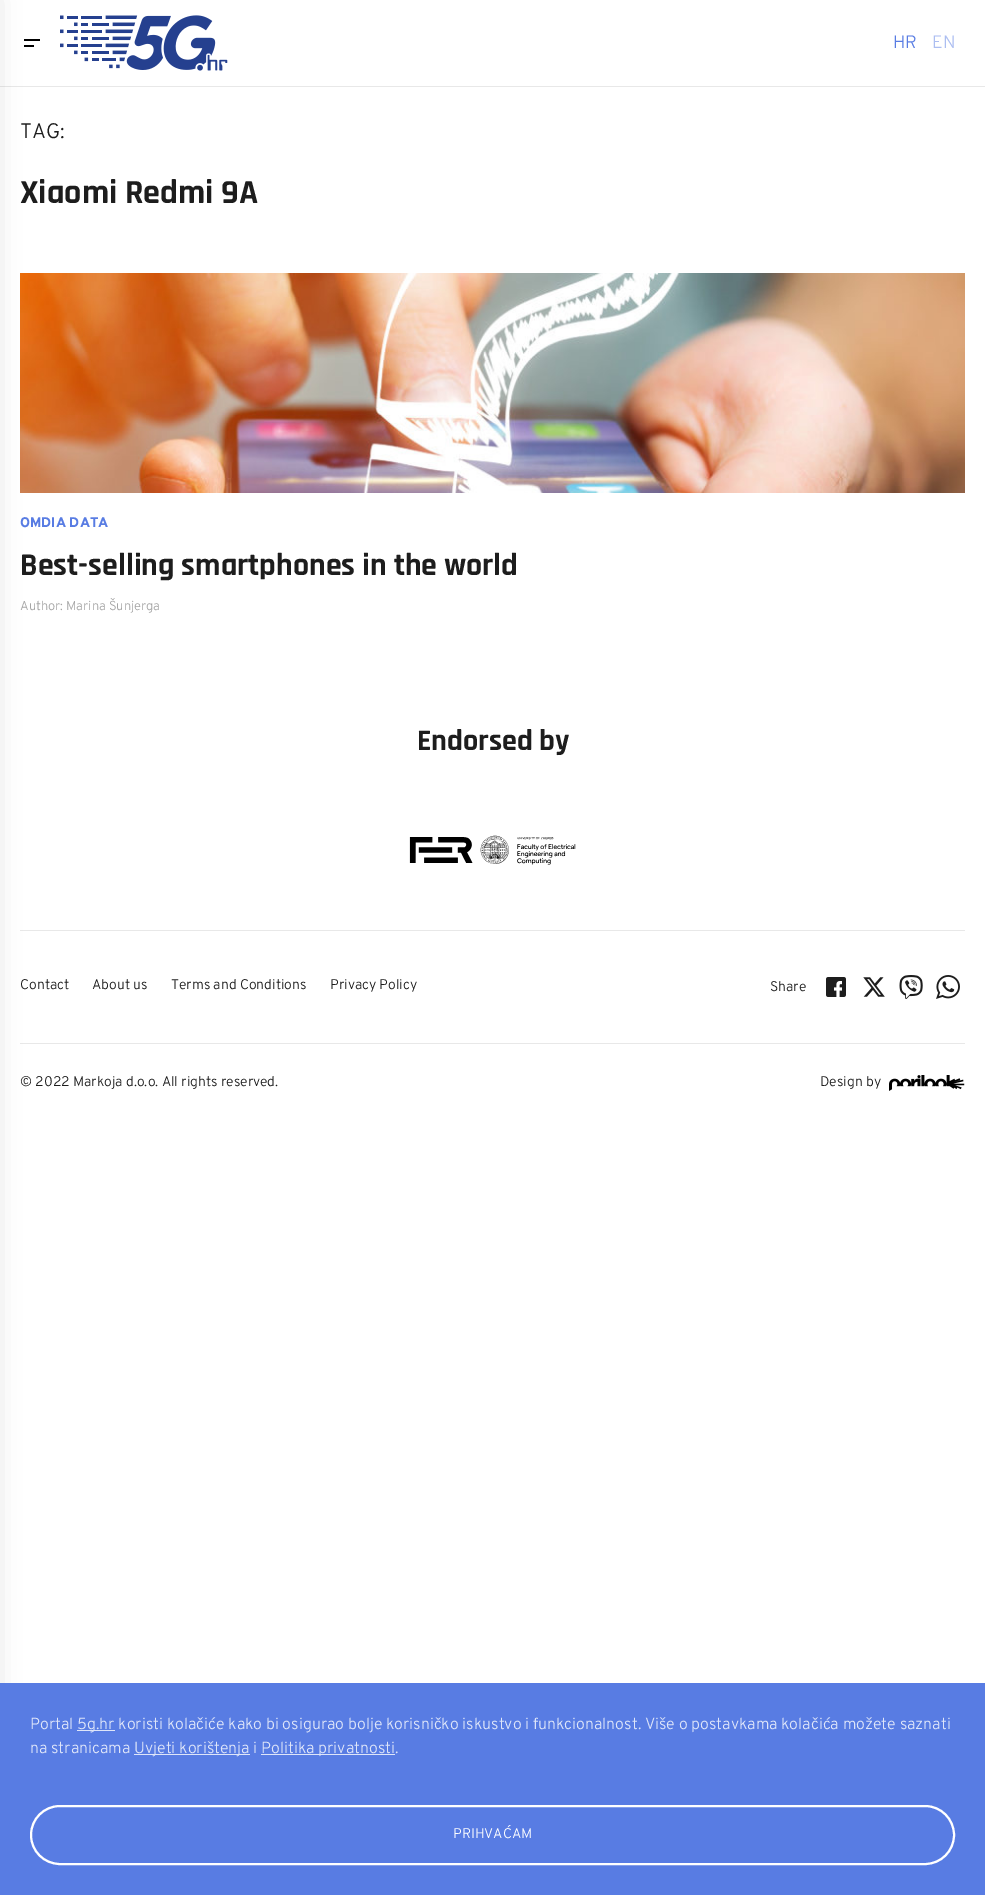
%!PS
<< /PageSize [985 1895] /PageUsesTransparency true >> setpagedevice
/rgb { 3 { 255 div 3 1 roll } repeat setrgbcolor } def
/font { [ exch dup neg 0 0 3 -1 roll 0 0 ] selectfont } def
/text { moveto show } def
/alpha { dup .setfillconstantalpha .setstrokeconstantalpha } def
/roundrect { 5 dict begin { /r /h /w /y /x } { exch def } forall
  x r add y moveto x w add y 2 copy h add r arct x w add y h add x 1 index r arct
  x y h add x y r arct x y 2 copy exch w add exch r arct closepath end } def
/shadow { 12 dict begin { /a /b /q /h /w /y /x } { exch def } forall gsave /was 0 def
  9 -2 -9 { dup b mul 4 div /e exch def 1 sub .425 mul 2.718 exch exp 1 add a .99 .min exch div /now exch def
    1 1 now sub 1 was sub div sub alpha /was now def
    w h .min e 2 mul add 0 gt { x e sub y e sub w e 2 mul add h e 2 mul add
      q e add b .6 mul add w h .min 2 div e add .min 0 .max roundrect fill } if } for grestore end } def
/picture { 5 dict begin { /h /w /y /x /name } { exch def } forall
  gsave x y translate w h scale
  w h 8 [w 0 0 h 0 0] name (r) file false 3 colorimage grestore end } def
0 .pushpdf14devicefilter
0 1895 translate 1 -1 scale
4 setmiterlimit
255 255 255 rgb
0 0 985 1895 rectfill
232 232 232 rgb
0 86 985 1 rectfill
(img_02.rgb) 20 273 945 220 picture
20 930 945 1 rectfill
20 1043 945 1 rectfill
0 0 0 rgb
-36 0 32 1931 0 12 0.12 shadow
(img_01.rgb) 60 15 168 56 picture
24 39 16 2 rectfill
24 45 10 2 rectfill
(img_03.rgb) 409 835 167 30 picture
(img_04.rgb) 826 977 20 20 picture
(img_05.rgb) 863 977 22 20 picture
(img_06.rgb) 899 975 24 24 picture
(img_07.rgb) 936 975 24 24 picture
(img_08.rgb) 889 1075 76 16 picture
88 124 227 rgb
0 1683 985 212 rectfill
222 229 249 rgb
77 1730 38 1 rectfill
134 1754 116 1 rectfill
261 1754 134 1 rectfill
255 255 255 rgb
2 setlinewidth
31 1806 923 58 29 roundrect stroke
/Overpass-Light 18 font
88 124 227 rgb
(HR) 893 48 text
172 190 241 rgb
(EN) 932 48 text
/Overpass-Light 21 font
29 29 29 rgb
(TAG:) 20 138 text
/Rajdhani-Bold 34 font
(Xiaomi Redmi 9A) 20 203 text
/Overpass-ExtraBold 14 font
88 124 227 rgb
(OMDIA DATA) 20 527 text
/Rajdhani-Bold 31.75 font
29 29 29 rgb
(Best-selling smartphones in the world) 20 575 text
/Overpass-Light 13 font
165 165 165 rgb
(Author: Marina Šunjerga) 20 610 text
/Rajdhani-Bold 30 font
29 29 29 rgb
(Endorsed by) 417 750 text
/Overpass-Light 14 font
(Contact) 20 989 text
(About us) 92 989 text
(Terms and Conditions) 171 989 text
(Privacy Policy) 330 989 text
(Share) 770 991 text
(© 2022 Markoja d.o.o. All rights reserved.) 20 1086 text
(Design by) 820 1086 text
/Overpass-Light 16 font
222 229 249 rgb
(Portal) 30 1729 text
(5g.hr koristi kolačiće kako bi osigurao bolje korisničko iskustvo i funkcionalnost. Više o postavkama kolačića možete saznati) 77 1729 text
(na stranicama) 30 1753 text
(Uvjeti korištenja i) 134 1753 text
(Politika privatnosti.) 261 1753 text
/Overpass-Light 14 font
255 255 255 rgb
(PRIHVAĆAM) 453 1838 text
.poppdf14devicefilter showpage
